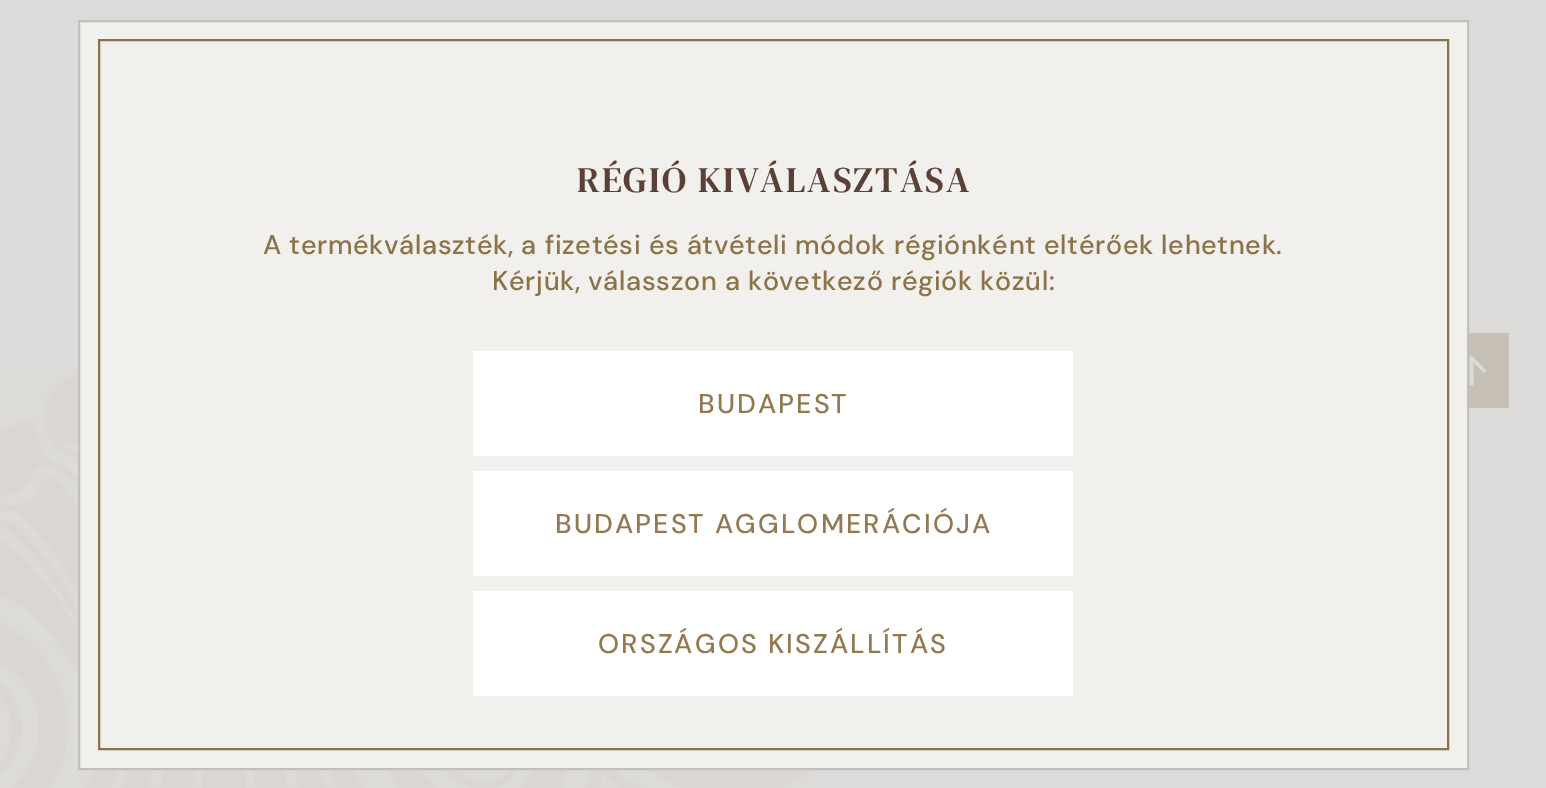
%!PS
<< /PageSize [1546 788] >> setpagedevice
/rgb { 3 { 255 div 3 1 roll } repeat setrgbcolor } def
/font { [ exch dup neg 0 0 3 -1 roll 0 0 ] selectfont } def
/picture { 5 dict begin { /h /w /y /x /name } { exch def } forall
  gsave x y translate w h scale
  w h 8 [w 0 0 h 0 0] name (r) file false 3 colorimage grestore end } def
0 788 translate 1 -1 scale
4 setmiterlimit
221 219 217 rgb
0 0 1546 788 rectfill
(img_01.rgb) 0 372 812 416 picture
198 191 180 rgb
1469 333 40 75 rectfill
221 219 217 rgb
1456.5 370.5 moveto 2.5 2.5 rlineto 10.5 -10.5 rlineto 0 23 rlineto 4 0 rlineto 0 -23 rlineto 10.5 10.5 rlineto 2.5 -2.5 rlineto -15 -15 rlineto closepath fill
242 240 236 rgb
79 21 moveto 1389 0 rlineto 0 748 rlineto -1389 0 rlineto closepath gsave fill grestore
194 192 189 rgb
2 setlinewidth
stroke
140 114 73 rgb
99 40 1349 709 rectstroke
255 255 255 rgb
473 351 600 105 rectfill
473 471 600 105 rectfill
473 591 600 105 rectfill
/DMSerifText-Regular 36 font
91 64 53 rgb
577 192 moveto 2 0 (RÉGIÓ KIVÁLASZTÁSA) ashow
/DMSans-Medium 27 font
140 114 73 rgb
263 254 moveto 0.63 0 (A termékválaszték, a fizetési és átvételi módok régiónként eltérőek lehetnek.) ashow
492 290 moveto 0.63 0 (Kérjük, válasszon a következő régiók közül:) ashow
146 121 82 rgb
698 413 moveto 2.1 0 (BUDAPEST) ashow
555 533 moveto 2.1 0 (BUDAPEST AGGLOMERÁCIÓJA) ashow
598 653 moveto 2.1 0 (ORSZÁGOS KISZÁLLÍTÁS) ashow
showpage
